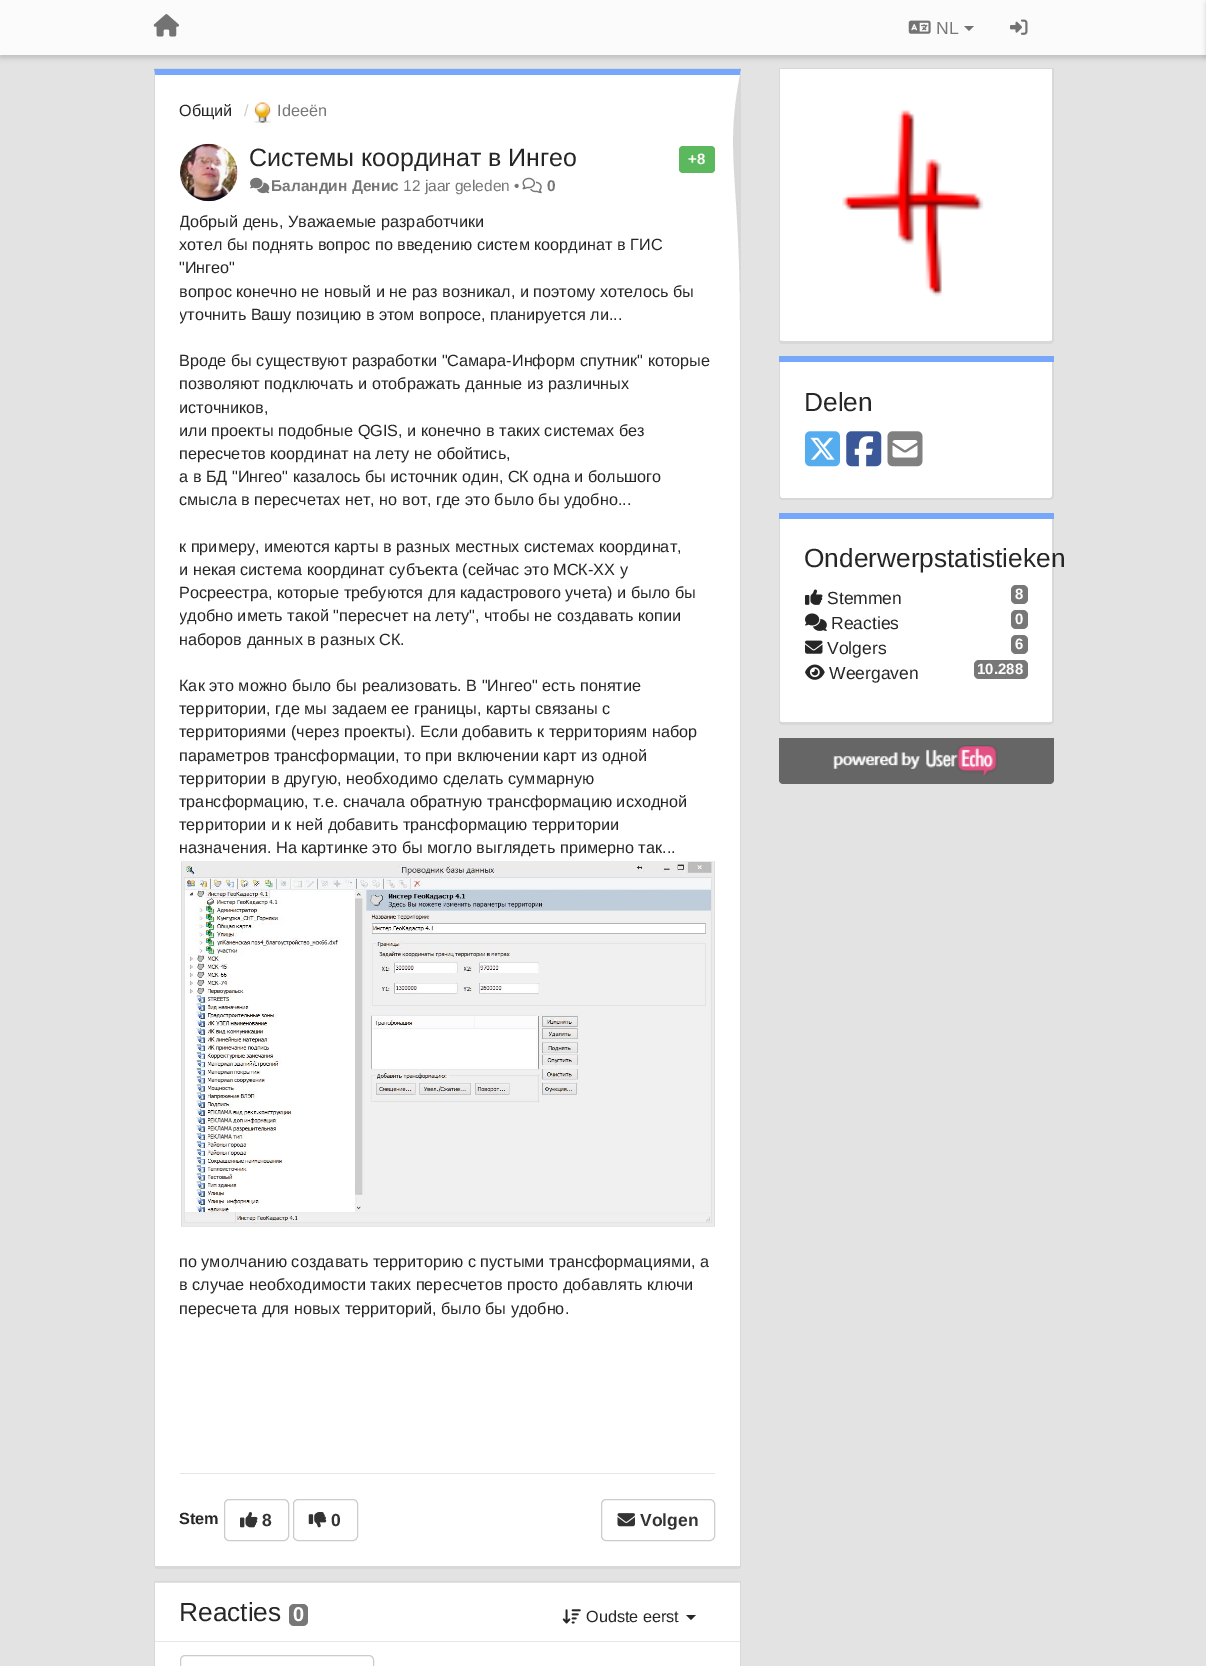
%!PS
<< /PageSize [1206 1666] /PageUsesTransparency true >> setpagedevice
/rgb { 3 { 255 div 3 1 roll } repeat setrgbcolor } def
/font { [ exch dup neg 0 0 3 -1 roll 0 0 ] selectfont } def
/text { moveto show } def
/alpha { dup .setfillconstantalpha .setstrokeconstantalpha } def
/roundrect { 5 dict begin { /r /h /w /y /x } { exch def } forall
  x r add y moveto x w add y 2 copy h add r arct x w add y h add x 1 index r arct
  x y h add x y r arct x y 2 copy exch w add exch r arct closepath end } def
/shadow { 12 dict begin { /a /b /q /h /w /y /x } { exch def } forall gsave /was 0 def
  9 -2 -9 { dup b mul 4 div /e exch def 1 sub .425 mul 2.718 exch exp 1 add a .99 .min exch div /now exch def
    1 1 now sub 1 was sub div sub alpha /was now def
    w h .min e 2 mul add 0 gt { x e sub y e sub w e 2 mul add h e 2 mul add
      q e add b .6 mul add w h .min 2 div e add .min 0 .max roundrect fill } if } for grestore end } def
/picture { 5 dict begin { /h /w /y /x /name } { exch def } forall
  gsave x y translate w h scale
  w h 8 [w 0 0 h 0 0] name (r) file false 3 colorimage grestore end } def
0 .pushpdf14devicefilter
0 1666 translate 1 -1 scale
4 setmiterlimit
227 227 227 rgb
0 0 1206 1666 rectfill
0 0 0 rgb
0 3 1206 55 0 2.5 0.15 shadow
251 251 251 rgb
0 0 1206 55 rectfill
(img_01.rgb) 153 14 26 23 picture
(img_02.rgb) 908 20 23 14 picture
115 115 115 rgb
964 26 moveto 10 0 rlineto -5 5 rlineto closepath fill
(img_03.rgb) 1010 19 18 16 picture
0 0 0 rgb
1206 3 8 55 0 2.5 0.15 shadow
216 216 216 rgb
154 68 587 1 rectfill
255 255 255 rgb
155 75 moveto 585 0 rlineto 0 1490 rlineto 0 1 -1 1 -2 1 rcurveto -580 0 rlineto -2 0 -3 0 -3 -1 rcurveto closepath fill
118 167 250 rgb
154 69 moveto 1 6 rlineto 585 0 rlineto 1 -6 rlineto closepath fill
216 216 216 rgb
741 1567 moveto 0 -2 rlineto 0 -1495 rlineto -17 84 -1 103 -1 253 rcurveto 0 1243 rlineto closepath fill
156 1569 moveto -1 -2 rlineto 0 -1 rlineto 585 0 rlineto 1 1 rlineto -2 2 rlineto closepath fill
155 75 moveto -1 -5 rlineto 0 1495 rlineto 1 2 rlineto 0 -1 rlineto 0 -1 rlineto closepath fill
(img_04.rgb) 253 102 18 21 picture
(img_05.rgb) 180 143 58 59 picture
92 184 92 rgb
679 146 36 27 4 roundrect fill
(img_06.rgb) 250 177 20 17 picture
(img_07.rgb) 522 177 20 17 picture
(img_08.rgb) 181 860 534 367 picture
229 229 229 rgb
180 1473 535 1 rectfill
204 204 204 rgb
224.5 1499.5 64 41 4.5 roundrect stroke
(img_09.rgb) 240 1512 18 16 picture
293.5 1499.5 64 41 4.5 roundrect stroke
(img_10.rgb) 308 1512 19 16 picture
601.5 1499.5 113 41 4.5 roundrect stroke
(img_11.rgb) 617 1513 18 14 picture
216 216 216 rgb
154 1581 587 1 rectfill
255 255 255 rgb
155 1583 585 83 rectfill
216 216 216 rgb
154 1582 moveto 587 0 rlineto 0 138 rlineto 0 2 -1 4 -3 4 rcurveto -580 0 rlineto -3 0 -4 -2 -4 -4 rcurveto closepath 155 1582 moveto 585 0 rlineto 0 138 rlineto 0 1 -1 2 -2 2 rcurveto -580 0 rlineto -2 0 -3 -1 -3 -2 rcurveto closepath eofill
119 119 119 rgb
289 1604 19 22 5 roundrect fill
(img_12.rgb) 562 1609 19 15 picture
38 38 38 rgb
686 1615 moveto 10 0 rlineto -5 5 rlineto closepath fill
225 232 237 rgb
155 1641 585 1 rectfill
204 204 204 rgb
180.5 1655.5 193 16 4.5 roundrect stroke
216 216 216 rgb
779 68 275 1 rectfill
255 255 255 rgb
780 69 moveto 272 0 rlineto 0 271 rlineto 0 1 -1 1 -2 1 rcurveto -268 0 rlineto -1 0 -2 0 -2 -1 rcurveto closepath fill
216 216 216 rgb
779 69 moveto 275 0 rlineto 0 271 rlineto 0 2 -2 4 -4 4 rcurveto -268 0 rlineto -2 0 -3 -2 -3 -4 rcurveto closepath 780 69 moveto 272 0 rlineto 0 271 rlineto 0 1 -1 1 -2 1 rcurveto -268 0 rlineto -1 0 -2 0 -2 -1 rcurveto closepath eofill
(img_13.rgb) 842 110 142 187 picture
118 167 250 rgb
779 356 275 6 rectfill
255 255 255 rgb
780 362 moveto 272 0 rlineto 0 134 rlineto 0 1 -1 2 -2 2 rcurveto -268 0 rlineto -1 0 -2 -1 -2 -2 rcurveto closepath fill
216 216 216 rgb
779 362 moveto 275 0 rlineto 0 134 rlineto 0 2 -2 4 -4 4 rcurveto -268 0 rlineto -2 0 -3 -2 -3 -4 rcurveto closepath 780 362 moveto 272 0 rlineto 0 134 rlineto 0 1 -1 2 -2 2 rcurveto -268 0 rlineto -1 0 -2 -1 -2 -2 rcurveto closepath eofill
(img_14.rgb) 805 431 35 36 picture
(img_15.rgb) 846 431 36 36 picture
(img_16.rgb) 887 431 36 36 picture
118 167 250 rgb
779 513 275 6 rectfill
255 255 255 rgb
780 519 moveto 272 0 rlineto 0 202 rlineto 0 1 -1 1 -2 1 rcurveto -268 0 rlineto -1 0 -2 0 -2 -1 rcurveto closepath fill
216 216 216 rgb
779 519 moveto 275 0 rlineto 0 202 rlineto 0 2 -2 4 -4 4 rcurveto -268 0 rlineto -2 0 -3 -2 -3 -4 rcurveto closepath 780 519 moveto 272 0 rlineto 0 202 rlineto 0 1 -1 1 -2 1 rcurveto -268 0 rlineto -1 0 -2 0 -2 -1 rcurveto closepath eofill
(img_17.rgb) 805 589 18 16 picture
119 119 119 rgb
1011 585 17 19 5 roundrect fill
(img_18.rgb) 805 613 22 18 picture
1011 610 17 19 5 roundrect fill
(img_19.rgb) 805 640 18 14 picture
1011 635 17 19 5 roundrect fill
(img_20.rgb) 805 664 20 16 picture
974 660 54 19 5 roundrect fill
102 102 102 rgb
779 738 moveto 275 0 rlineto 0 42 rlineto 0 2 -2 4 -4 4 rcurveto -267 0 rlineto -2 0 -4 -2 -4 -4 rcurveto closepath fill
(img_21.rgb) 833 745 165 32 picture
/LiberationSans-Regular 17.5 font
119 119 119 rgb
(NL) 936 34 text
/LiberationSans-Regular 16.25 font
38 38 38 rgb
(Общий) 179 116 text
204 204 204 rgb
(/) 244 116 text
119 119 119 rgb
(Ideeën) 277 116 text
/LiberationSans-Regular 25 font
38 38 38 rgb
(Системы координат в Ингео) 249 166 text
/LiberationSans-Bold 15 font
255 255 255 rgb
(+8) 688 164 text
/LiberationSans-Bold 15.5 font
119 119 119 rgb
(Баландин Денис) 271 191 text
/LiberationSans-Regular 15.5 font
(12 jaar geleden •) 403 191 text
/LiberationSans-Bold 15.5 font
(0) 547 191 text
gsave
180 211 535 1249 rectclip
/LiberationSans-Regular 16.25 font
38 38 38 rgb
(Добрый день, Уважаемые разработчики) 179 227 text
grestore
/LiberationSans-Regular 16.25 font
38 38 38 rgb
(хотел бы поднять вопрос по введению систем координат в ГИС) 179 250 text
("Ингео") 179 273 text
(вопрос конечно не новый и не раз возникал, и поэтому хотелось бы) 179 297 text
gsave
180 211 535 1249 rectclip
(уточнить Вашу позицию в этом вопросе, планируется ли...) 179 320 text
grestore
(Вроде бы существуют разработки "Самара-Информ спутник" которые) 179 366 text
(позволяют подключать и отображать данные из различных) 179 389 text
(источников,) 179 413 text
(или проекты подобные QGIS, и конечно в таких системах без) 179 436 text
(пересчетов координат на лету не обойтись,) 179 459 text
(а в БД "Ингео" казалось бы источник один, СК одна и большого) 179 482 text
(смысла в пересчетах нет, но вот, где это было бы удобно...) 179 505 text
(к примеру, имеются карты в разных местных системах координат,) 179 552 text
(и некая система координат субъекта \(сейчас это МСК-XX у) 179 575 text
(Росреестра, которые требуются для кадастрового учета\) и было бы) 179 598 text
gsave
180 211 535 1249 rectclip
(удобно иметь такой "пересчет на лету", чтобы не создавать копии) 179 621 text
grestore
(наборов данных в разных СК.) 179 645 text
(Как это можно было бы реализовать. В "Ингео" есть понятие) 179 691 text
(территории, где мы задаем ее границы, карты связаны с) 179 714 text
(территориями \(через проекты\). Если добавить к территориям набор) 179 737 text
(параметров трансформации, то при включении карт из одной) 179 761 text
(территории в другую, необходимо сделать суммарную) 179 784 text
(трансформацию, т.е. сначала обратную трансформацию исходной) 179 807 text
(территории и к ней добавить трансформацию территории) 179 830 text
(назначения. На картинке это бы могло выглядеть примерно так...) 179 853 text
(по умолчанию создавать территорию с пустыми трансформациями, а) 179 1267 text
(в случае необходимости таких пересчетов просто добавлять ключи) 179 1290 text
(пересчета для новых территорий, было бы удобно.) 179 1314 text
/LiberationSans-Bold 16.25 font
(Stem) 179 1524 text
/LiberationSans-Bold 17.5 font
51 51 51 rgb
(8) 262 1526 text
(0) 331 1526 text
(Volgen) 640 1526 text
/LiberationSans-Regular 26.25 font
38 38 38 rgb
(Reacties) 179 1621 text
/LiberationSans-Bold 20 font
255 255 255 rgb
(0) 293 1621 text
/LiberationSans-Regular 16.25 font
38 38 38 rgb
(Oudste eerst) 586 1622 text
/LiberationSans-Regular 26.25 font
(Delen) 804 411 text
(Onderwerpstatistieken) 804 567 text
/LiberationSans-Regular 17.5 font
(Stemmen) 827 604 text
/LiberationSans-Bold 15 font
255 255 255 rgb
(8) 1015 599 text
/LiberationSans-Regular 17.5 font
38 38 38 rgb
(Reacties) 831 629 text
/LiberationSans-Bold 15 font
255 255 255 rgb
(0) 1015 624 text
/LiberationSans-Regular 17.5 font
38 38 38 rgb
(Volgers) 827 654 text
/LiberationSans-Bold 15 font
255 255 255 rgb
(6) 1015 649 text
/LiberationSans-Regular 17.5 font
38 38 38 rgb
(Weergaven) 829 679 text
/LiberationSans-Bold 15 font
255 255 255 rgb
(10.288) 977 674 text
.poppdf14devicefilter showpage
